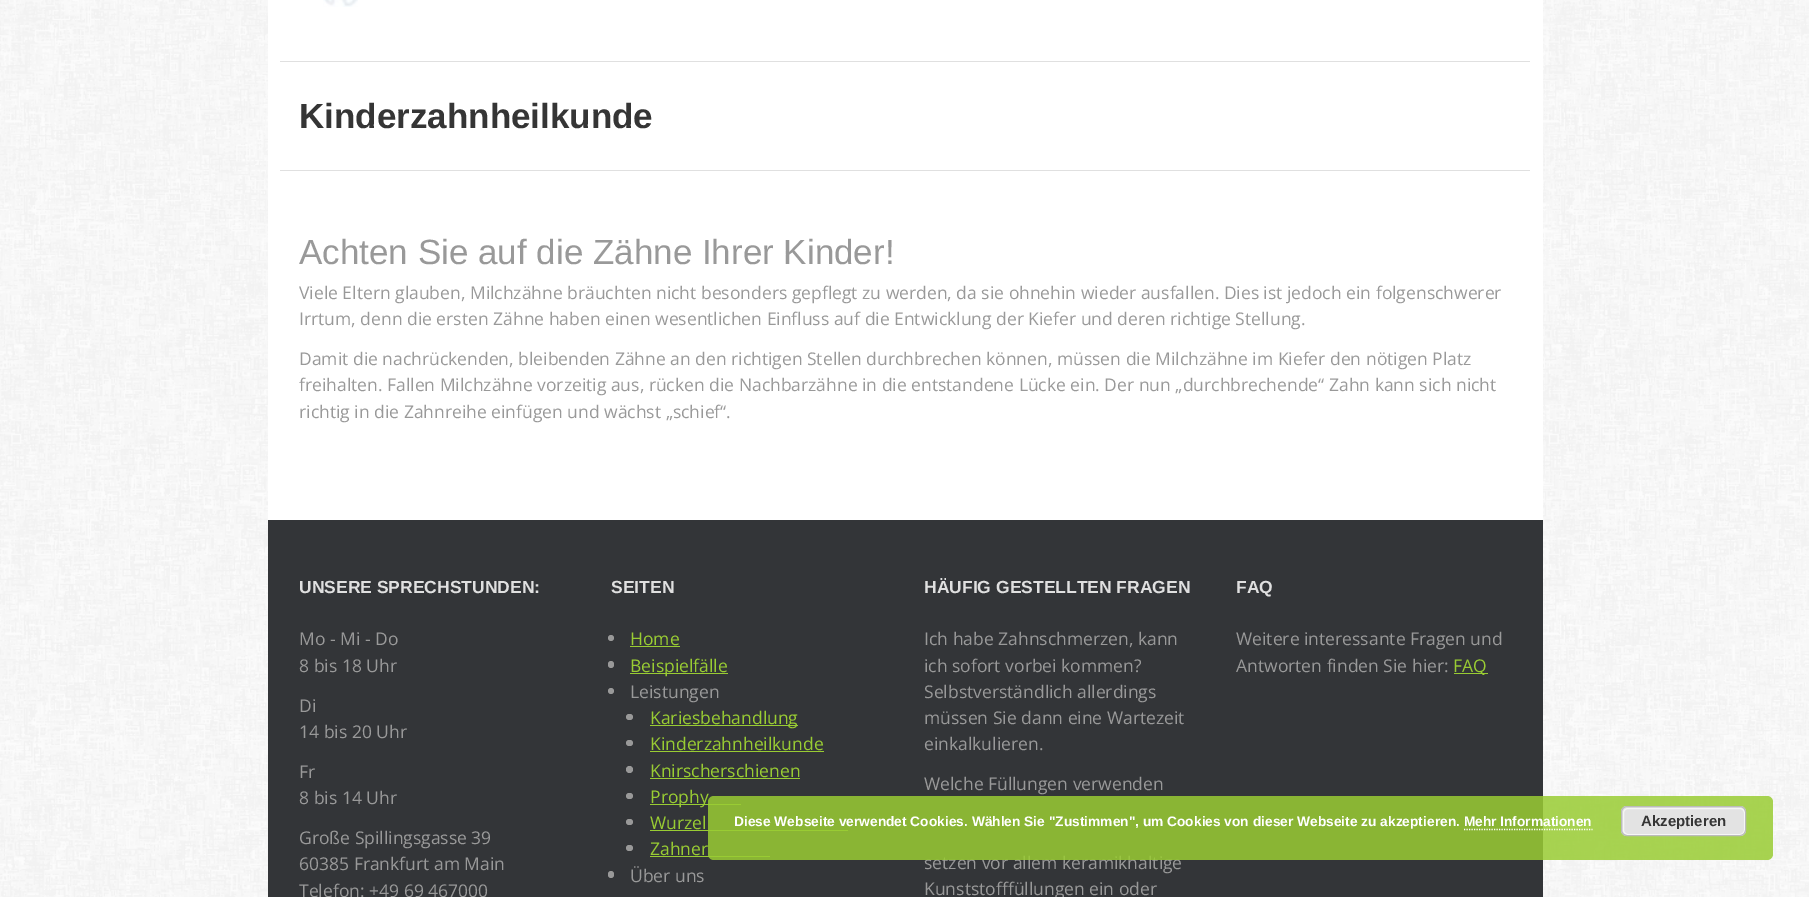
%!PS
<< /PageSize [1809 897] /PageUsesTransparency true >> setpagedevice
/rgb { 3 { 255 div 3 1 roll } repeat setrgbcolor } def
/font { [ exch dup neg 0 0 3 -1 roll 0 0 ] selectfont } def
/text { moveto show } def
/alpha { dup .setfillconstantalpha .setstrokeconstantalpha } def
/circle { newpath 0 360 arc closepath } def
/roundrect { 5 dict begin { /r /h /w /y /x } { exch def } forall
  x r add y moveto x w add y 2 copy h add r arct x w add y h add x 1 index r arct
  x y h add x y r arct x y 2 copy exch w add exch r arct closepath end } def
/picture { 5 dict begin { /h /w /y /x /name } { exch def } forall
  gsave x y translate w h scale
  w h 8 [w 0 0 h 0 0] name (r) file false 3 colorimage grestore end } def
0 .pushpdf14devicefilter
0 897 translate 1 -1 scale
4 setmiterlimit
255 255 255 rgb
0 0 1809 897 rectfill
(img_01.rgb) 0 0 1809 897 picture
268 0 1275 520 rectfill
(img_02.rgb) 323 0 35 7 picture
224 224 224 rgb
280 61 1250 1 rectfill
280 170 1250 1 rectfill
51 53 56 rgb
268 520 1275 377 rectfill
153 153 153 rgb
611 638 3 circle fill
153 204 51 rgb
630 646 50 1 rectfill
153 153 153 rgb
608 661 6 7 3 roundrect fill
153 204 51 rgb
630 673 98 1 rectfill
153 153 153 rgb
611 691 3 circle fill
626 714 7 6 3 roundrect fill
153 204 51 rgb
650 725 148 1 rectfill
153 153 153 rgb
626 740 7 6 3 roundrect fill
153 204 51 rgb
650 751 174 1 rectfill
153 153 153 rgb
629.5 769.5 3.5 circle fill
153 204 51 rgb
650 778 150 1 rectfill
153 153 153 rgb
626 793 7 6 3 roundrect fill
153 204 51 rgb
650 804 91 1 rectfill
153 153 153 rgb
626 819 7 6 3 roundrect fill
153 204 51 rgb
650 830 198 1 rectfill
153 153 153 rgb
626 845 7 6 3 roundrect fill
153 204 51 rgb
650 856 120 1 rectfill
153 153 153 rgb
608 871 6 7 3 roundrect fill
153 204 51 rgb
1454 673 34 1 rectfill
/LiberationSans-Bold 35 font
53 53 53 rgb
(Kinderzahnheilkunde) 299 128 text
/LiberationSans-Regular 35 font
153 153 153 rgb
(Achten Sie auf die Zähne Ihrer Kinder!) 299 264 text
/OpenSans-Regular 17.5 font
(Viele Eltern glauben, Milchzähne bräuchten nicht besonders gepflegt zu werden, da sie ohnehin wieder ausfallen. Dies ist jedoch ein folgenschwerer) 299 299 text
(Irrtum, denn die ersten Zähne haben einen wesentlichen Einfluss auf die Entwicklung der Kiefer und deren richtige Stellung.) 299 325 text
(Damit die nachrückenden, bleibenden Zähne an den richtigen Stellen durchbrechen können, müssen die Milchzähne im Kiefer den nötigen Platz) 299 365 text
(freihalten. Fallen Milchzähne vorzeitig aus, rücken die Nachbarzähne in die entstandene Lücke ein. Der nun „durchbrechende“ Zahn kann sich nicht) 299 391 text
(richtig in die Zahnreihe einfügen und wächst „schief“.) 299 418 text
/LiberationSans-Bold 17.5 font
224 224 224 rgb
(UNSERE SPRECHSTUNDEN:) 299 593 text
/OpenSans-Regular 17.5 font
153 153 153 rgb
(Mo - Mi - Do) 299 645 text
(8 bis 18 Uhr) 299 672 text
(Di) 299 712 text
(14 bis 20 Uhr) 299 738 text
(Fr) 299 778 text
(8 bis 14 Uhr) 299 804 text
(Große Spillingsgasse 39) 299 844 text
(60385 Frankfurt am Main) 299 870 text
(Telefon: +49 69 467000) 299 897 text
/LiberationSans-Bold 17.5 font
224 224 224 rgb
(SEITEN) 611 593 text
/OpenSans-Regular 17.5 font
153 204 51 rgb
(Home) 630 645 text
(Beispielfälle) 630 672 text
153 153 153 rgb
(Leistungen) 630 698 text
153 204 51 rgb
(Kariesbehandlung) 650 724 text
(Kinderzahnheilkunde) 650 750 text
(Knirscherschienen) 650 777 text
(Prophy) 650 803 text
(Wurzel) 650 829 text
(Zahner) 650 855 text
153 153 153 rgb
(Über uns) 630 882 text
/LiberationSans-Bold 17.5 font
224 224 224 rgb
(HÄUFIG GESTELLTEN FRAGEN) 924 593 text
/OpenSans-Regular 17.5 font
153 153 153 rgb
(Ich habe Zahnschmerzen, kann) 924 645 text
(ich sofort vorbei kommen?) 924 672 text
(Selbstverständlich allerdings) 924 698 text
(müssen Sie dann eine Wartezeit) 924 724 text
(einkalkulieren.) 924 750 text
(Welche Füllungen verwenden) 924 790 text
(setzen vor allem keramikhaltige) 924 869 text
(Kunststofffüllungen ein oder) 924 895 text
/LiberationSans-Bold 17.5 font
224 224 224 rgb
(FAQ) 1236 593 text
/OpenSans-Regular 17.5 font
153 153 153 rgb
(Weitere interessante Fragen und) 1236 645 text
(Antworten finden Sie hier:) 1236 672 text
153 204 51 rgb
(FAQ) 1453 672 text
0.85 alpha
708 796 1065 64 6 roundrect fill
/LiberationSans-Bold 13.75 font
1 alpha
255 255 255 rgb
(Diese Webseite verwendet Cookies. Wählen Sie "Zustimmen", um Cookies von dieser Webseite zu akzeptieren. Mehr Informationen) 734 826 text
227 227 227 rgb
1621 806 125 30 6 roundrect fill
246 246 246 rgb
1623.5 808.5 121 26 4.5 roundrect stroke
187 187 187 rgb
1621.5 806.5 124 29 5.5 roundrect stroke
/LiberationSans-Bold 15 font
53 53 53 rgb
(Akzeptieren) 1641 826 text
255 255 255 rgb
1.2 setlinewidth
[1.25 1.25] 0 setdash
1464 829.5 moveto 128.5 0 rlineto stroke
.poppdf14devicefilter showpage
